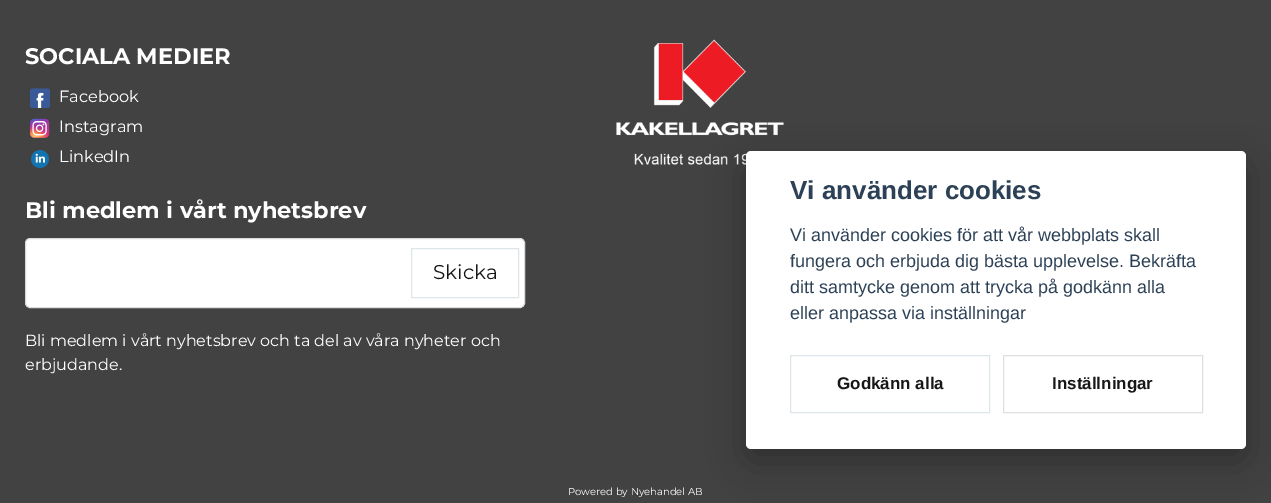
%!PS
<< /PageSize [1271 503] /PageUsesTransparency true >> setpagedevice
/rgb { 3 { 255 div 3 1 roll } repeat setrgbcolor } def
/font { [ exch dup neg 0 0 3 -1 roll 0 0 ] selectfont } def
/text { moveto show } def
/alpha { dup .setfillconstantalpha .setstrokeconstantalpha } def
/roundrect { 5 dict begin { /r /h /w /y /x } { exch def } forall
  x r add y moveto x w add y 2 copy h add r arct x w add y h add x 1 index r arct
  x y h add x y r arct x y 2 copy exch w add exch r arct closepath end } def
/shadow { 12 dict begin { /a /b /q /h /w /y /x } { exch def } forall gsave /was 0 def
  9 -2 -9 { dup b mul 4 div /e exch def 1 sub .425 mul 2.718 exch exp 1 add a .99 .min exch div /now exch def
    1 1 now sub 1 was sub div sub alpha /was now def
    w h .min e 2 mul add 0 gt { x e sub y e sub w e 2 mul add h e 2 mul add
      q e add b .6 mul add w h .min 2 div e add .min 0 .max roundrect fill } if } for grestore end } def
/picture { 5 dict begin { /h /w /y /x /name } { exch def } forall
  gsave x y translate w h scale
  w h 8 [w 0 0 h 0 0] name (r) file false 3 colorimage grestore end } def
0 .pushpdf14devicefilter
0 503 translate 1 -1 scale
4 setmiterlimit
66 66 66 rgb
0 0 1271 503 rectfill
(img_01.rgb) 30 88 20 20 picture
(img_02.rgb) 30 118 20 20 picture
(img_03.rgb) 31 150 18 18 picture
(img_04.rgb) 616 39 168 126 picture
255 255 255 rgb
25.5 238.5 499 69 4.5 roundrect gsave fill grestore
219 219 219 rgb
stroke
221 230 232 rgb
411.5 248.5 107 49 rectstroke
2 2 3 rgb
746 164 500 297 5 19 0.28 shadow
255 255 255 rgb
746 151 500 298 5 roundrect fill
221 230 232 rgb
790.5 355.5 199 57 rectstroke
223 223 223 rgb
1003.5 355.5 199 57 rectstroke
/Montserrat-Bold 22.5 font
255 255 255 rgb
(SOCIALA MEDIER) 25 64 text
/Montserrat-Regular 16.25 font
(Facebook) 59 102 text
(Instagram) 59 132 text
(LinkedIn) 59 162 text
/Montserrat-Bold 22.5 font
(Bli medlem i vårt nyhetsbrev) 25 218 text
/Montserrat-Regular 20 font
23 23 23 rgb
(Skicka) 433 279 text
/Montserrat-Regular 16 font
255 255 255 rgb
(Bli medlem i vårt nyhetsbrev och ta del av våra nyheter och) 25 346 text
(erbjudande.) 25 370 text
/Montserrat-Regular 10 font
(Powered by Nyehandel AB) 568 495 text
/LiberationSans-Bold 26 font
45 65 86 rgb
(Vi använder cookies) 790 199 text
/LiberationSans-Regular 18 font
(Vi använder cookies för att vår webbplats skall) 790 241 text
(fungera och erbjuda dig bästa upplevelse. Bekräfta) 790 267 text
(ditt samtycke genom att trycka på godkänn alla) 790 293 text
(eller anpassa via inställningar) 790 319 text
/LiberationSans-Bold 17 font
23 23 23 rgb
(Godkänn alla) 837 389 text
(Inställningar) 1052 389 text
.poppdf14devicefilter showpage
